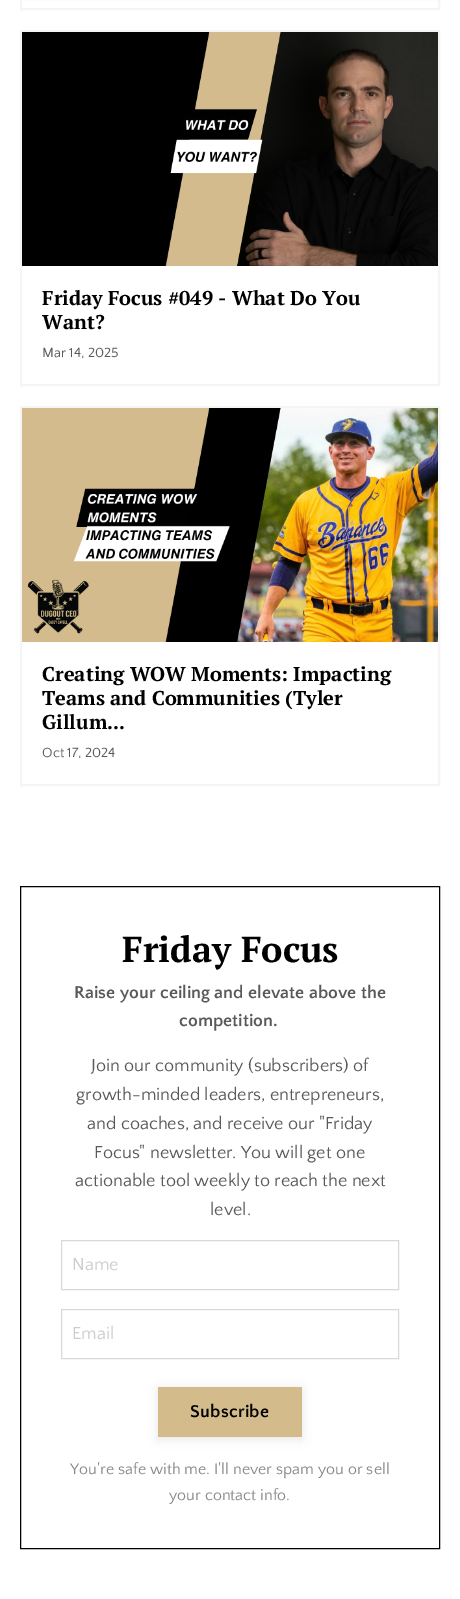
%!PS
<< /PageSize [460 1599] /PageUsesTransparency true >> setpagedevice
/rgb { 3 { 255 div 3 1 roll } repeat setrgbcolor } def
/font { [ exch dup neg 0 0 3 -1 roll 0 0 ] selectfont } def
/text { moveto show } def
/alpha { dup .setfillconstantalpha .setstrokeconstantalpha } def
/roundrect { 5 dict begin { /r /h /w /y /x } { exch def } forall
  x r add y moveto x w add y 2 copy h add r arct x w add y h add x 1 index r arct
  x y h add x y r arct x y 2 copy exch w add exch r arct closepath end } def
/shadow { 12 dict begin { /a /b /q /h /w /y /x } { exch def } forall gsave /was 0 def
  9 -2 -9 { dup b mul 4 div /e exch def 1 sub .425 mul 2.718 exch exp 1 add a .99 .min exch div /now exch def
    1 1 now sub 1 was sub div sub alpha /was now def
    w h .min e 2 mul add 0 gt { x e sub y e sub w e 2 mul add h e 2 mul add
      q e add b .6 mul add w h .min 2 div e add .min 0 .max roundrect fill } if } for grestore end } def
/picture { 5 dict begin { /h /w /y /x /name } { exch def } forall
  gsave x y translate w h scale
  w h 8 [w 0 0 h 0 0] name (r) file false 3 colorimage grestore end } def
0 .pushpdf14devicefilter
0 1599 translate 1 -1 scale
4 setmiterlimit
255 255 255 rgb
0 0 460 1599 rectfill
245 245 245 rgb
2 setlinewidth
21 -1 418 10 rectstroke
21 31 418 354 rectstroke
(img_01.rgb) 22 32 416 234 picture
21 407 418 378 rectstroke
(img_02.rgb) 22 408 416 234 picture
0 0 0 rgb
1 setlinewidth
20.5 886.5 419 662 rectstroke
217 217 217 rgb
61.5 1240.5 337 49 rectstroke
61.5 1309.5 337 49 rectstroke
0 0 0 rgb
158 1389 144 50 0 5 0.1 shadow
211 187 140 rgb
158 1387 144 50 rectfill
/PTSerif-Bold 20 font
0 0 0 rgb
(Friday Focus #049 - What Do You) 42 305 text
(Want?) 42 329 text
/QuattrocentoSans-Regular 14 font
89 89 89 rgb
(Mar 14, 2025) 42 357 text
/PTSerif-Bold 20 font
0 0 0 rgb
(Creating WOW Moments: Impacting) 42 681 text
(Teams and Communities \(Tyler) 42 705 text
(Gillum...) 42 729 text
/QuattrocentoSans-Regular 14 font
89 89 89 rgb
(Oct 17, 2024) 42 757 text
/PTSerif-Bold 36 font
0 0 0 rgb
(Friday Focus) 122 962 text
/QuattrocentoSans-Bold 18 font
89 89 89 rgb
(Raise your ceiling and elevate above the) 74 998 text
(competition.) 179 1026 text
/QuattrocentoSans-Regular 18 font
(Join our community \(subscribers\) of) 91 1071 text
(growth-minded leaders, entrepreneurs,) 76 1100 text
(and coaches, and receive our "Friday) 87 1129 text
(Focus" newsletter. You will get one) 94 1158 text
(actionable tool weekly to reach the next) 75 1186 text
(level.) 210 1215 text
204 204 204 rgb
(Name) 72 1270 text
(Email) 72 1339 text
/QuattrocentoSans-Bold 18 font
0 0 0 rgb
190 1417 moveto 0.25 0 (Subscribe) ashow
/QuattrocentoSans-Regular 16 font
136 136 136 rgb
(You're safe with me. I'll never spam you or sell) 70 1474 text
(your contact info.) 169 1500 text
.poppdf14devicefilter showpage
